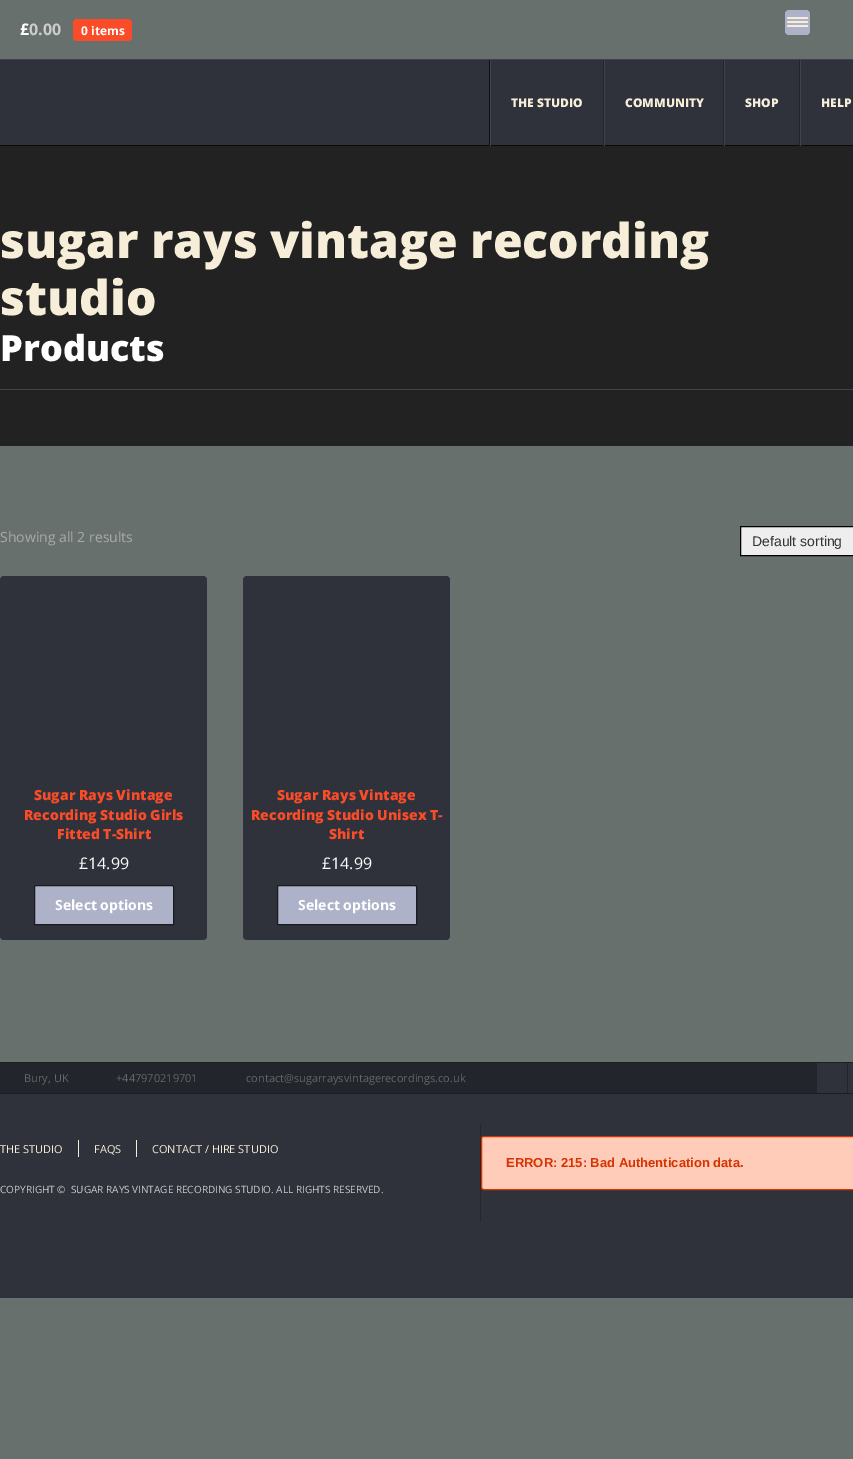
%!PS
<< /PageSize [853 1459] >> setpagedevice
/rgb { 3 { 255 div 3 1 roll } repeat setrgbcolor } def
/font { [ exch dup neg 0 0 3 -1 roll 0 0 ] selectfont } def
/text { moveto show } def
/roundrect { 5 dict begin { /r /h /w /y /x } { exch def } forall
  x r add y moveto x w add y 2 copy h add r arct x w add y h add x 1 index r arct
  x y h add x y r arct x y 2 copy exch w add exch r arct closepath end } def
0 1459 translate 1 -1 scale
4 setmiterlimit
103 112 109 rgb
0 0 853 1459 rectfill
63 67 78 rgb
0 59 853 1 rectfill
250 76 41 rgb
73 19 59 22 4 roundrect fill
173 178 200 rgb
785 10 25 25 4 roundrect fill
246 238 217 rgb
787 21 21 2 1 roundrect fill
787 17 21 2 1 roundrect fill
787 25 21 2 1 roundrect fill
47 50 59 rgb
0 60 853 85 rectfill
10 10 10 rgb
0 145 853 1 rectfill
17 17 17 rgb
489 60 1 86 rectfill
34 37 43 rgb
603 60 1 86 rectfill
63 67 78 rgb
490 60 1 86 rectfill
34 37 43 rgb
723 60 1 86 rectfill
63 67 78 rgb
604 60 1 86 rectfill
34 37 43 rgb
799 60 1 86 rectfill
63 67 78 rgb
724 60 1 86 rectfill
800 60 1 86 rectfill
34 34 34 rgb
0 146 853 299 rectfill
34 37 43 rgb
0 445 853 1 rectfill
63 67 78 rgb
0 389 853 1 rectfill
238 238 238 rgb
740.5 526.5 moveto 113 0 rlineto 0 29 rlineto -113 0 rlineto closepath gsave fill grestore
0 0 0 rgb
stroke
47 50 59 rgb
0 576 207 364 4 roundrect fill
173 178 200 rgb
36 885.5 moveto 136 0 rlineto 1 0 1.5 0.5 1.5 1.5 rcurveto 0 37.5 rlineto -139 0 rlineto 0 -37.5 rlineto 0 -1 0.5 -1.5 1.5 -1.5 rcurveto closepath gsave fill grestore
27 27 27 rgb
stroke
47 50 59 rgb
243 576 207 364 4 roundrect fill
173 178 200 rgb
279 885.5 moveto 136 0 rlineto 1 0 1.5 0.5 1.5 1.5 rcurveto 0 37.5 rlineto -139 0 rlineto 0 -37.5 rlineto 0 -1 0.5 -1.5 1.5 -1.5 rcurveto closepath gsave fill grestore
27 27 27 rgb
stroke
34 37 43 rgb
0 1063 848 30 rectfill
28 30 36 rgb
0 1062 853 1 rectfill
47 50 59 rgb
817 1063 30 30 rectfill
848 1063 5 30 rectfill
0 1094 853 204 rectfill
28 30 36 rgb
0 1093 853 1 rectfill
246 238 217 rgb
78 1140 1 17 rectfill
136 1140 1 17 rectfill
39 39 39 rgb
480 1124 1 98 rectfill
255 204 186 rgb
481.5 1136.5 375 53 2.5 roundrect gsave fill grestore
214 51 1 rgb
stroke
/OpenSans-Bold 16 font
255 255 255 rgb
(£) 20 35 text
204 204 204 rgb
(0.00) 29 35 text
/OpenSans-Bold 12 font
255 255 255 rgb
(0 items) 81 35 text
/OpenSans-ExtraBold 12 font
246 238 217 rgb
(THE STUDIO) 511 107 text
(COMMUNITY) 625 107 text
(SHOP) 745 107 text
(HELP) 821 107 text
/OpenSans-ExtraBold 48 font
(sugar rays vintage recording) 0 258 text
(studio) 0 315 text
/OpenSans-ExtraBold 36 font
255 255 255 rgb
(Products) 0 361 text
/OpenSans-Regular 14 font
170 170 170 rgb
(Showing all 2 results) 0 542 text
/LiberationSans-Regular 14 font
51 51 51 rgb
(Default sorting) 752 546 text
/OpenSans-ExtraBold 14 font
250 76 41 rgb
(Sugar Rays Vintage) 34 800 text
(Recording Studio Girls) 24 820 text
(Fitted T-Shirt) 57 839 text
/OpenSans-Regular 16 font
255 255 255 rgb
(£14.99) 79 869 text
/OpenSans-Bold 14 font
(Select options) 55 910 text
/OpenSans-ExtraBold 14 font
250 76 41 rgb
(Sugar Rays Vintage) 277 800 text
(Recording Studio Unisex T-) 251 820 text
(Shirt) 329 839 text
/OpenSans-Regular 16 font
255 255 255 rgb
(£14.99) 322 869 text
/OpenSans-Bold 14 font
(Select options) 298 910 text
/OpenSans-Regular 11 font
102 102 102 rgb
(Bury, UK) 24 1082 text
(+447970219701) 116 1082 text
(contact@sugarraysvintagerecordings.co.uk) 246 1082 text
246 238 217 rgb
(THE STUDIO) 0 1153 text
(FAQS) 94 1153 text
(CONTACT / HIRE STUDIO) 152 1153 text
/OpenSans-Regular 10 font
204 204 204 rgb
(COPYRIGHT ©  SUGAR RAYS VINTAGE RECORDING STUDIO. ALL RIGHTS RESERVED.) 0 1193 text
/LiberationSans-Bold 13 font
214 51 1 rgb
(ERROR: 215: Bad Authentication data.) 506 1167 text
showpage
